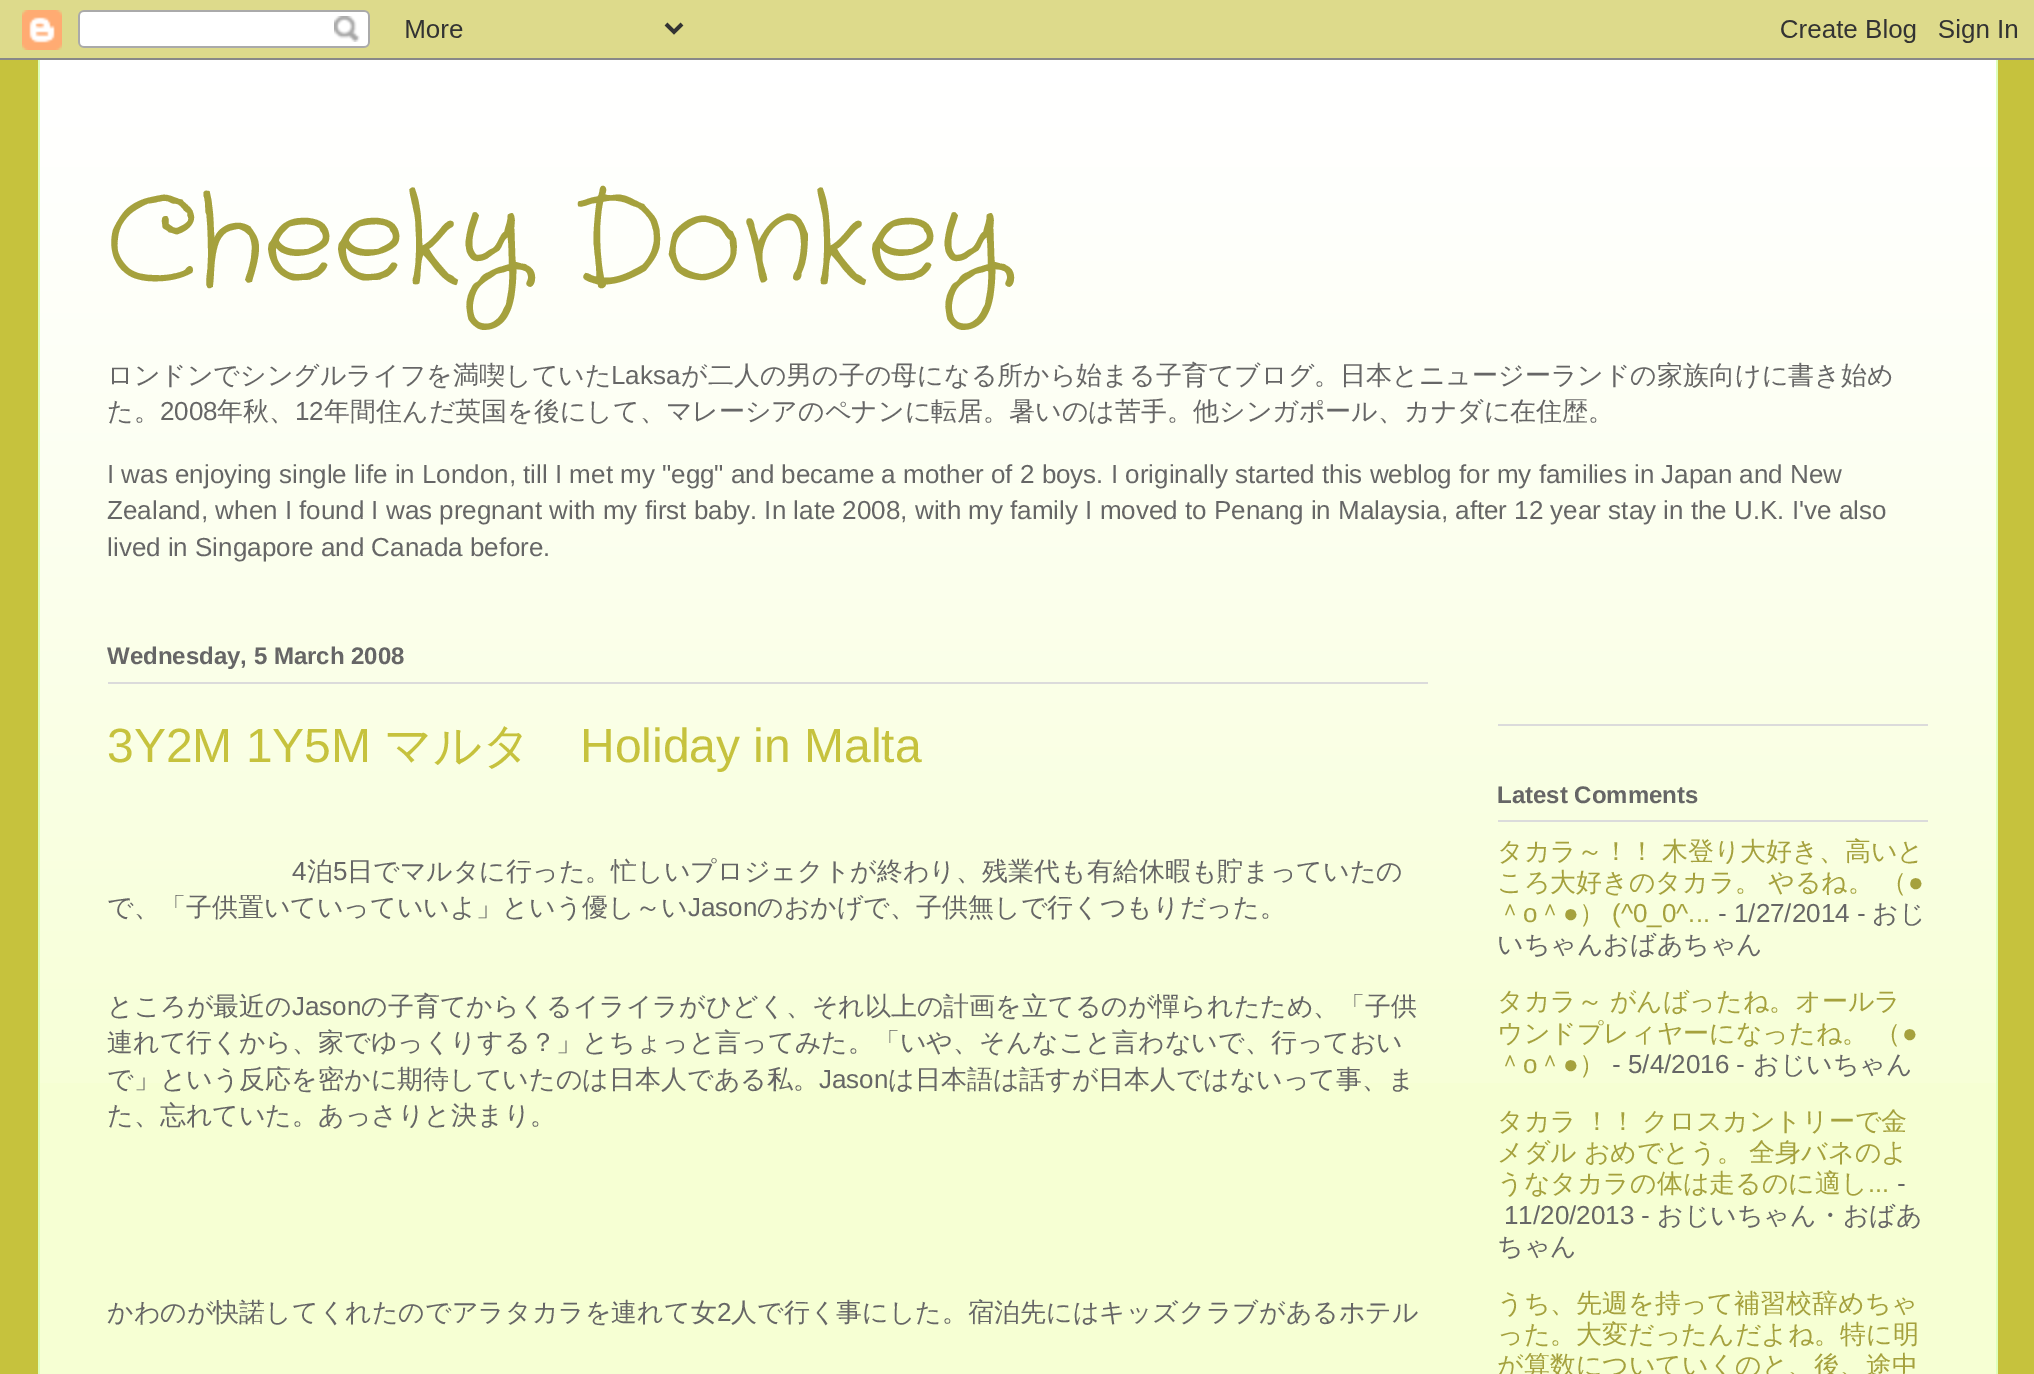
%!PS
<< /PageSize [2034 1374] >> setpagedevice
/rgb { 3 { 255 div 3 1 roll } repeat setrgbcolor } def
/font { [ exch dup neg 0 0 3 -1 roll 0 0 ] selectfont } def
/text { moveto show } def
/picture { 5 dict begin { /h /w /y /x /name } { exch def } forall
  gsave x y translate w h scale
  w h 8 [w 0 0 h 0 0] name (r) file false 3 colorimage grestore end } def
0 1374 translate 1 -1 scale
4 setmiterlimit
198 194 61 rgb
0 0 2034 1374 rectfill
(img_01.rgb) 0 0 2034 60 picture
246 255 211 rgb
40 73 1956 1301 rectfill
(img_02.rgb) 40 60 1956 1023 picture
221 255 187 rgb
1996 60 2 1314 rectfill
38 60 2 1314 rectfill
219 219 219 rgb
108 682 1320 2 rectfill
1498 724 430 2 rectfill
1498 820 430 2 rectfill
/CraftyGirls-Regular 120 font
165 161 61 rgb
(Cheeky Donkey) 107 276 text
/WenQuanYiZenHei-Medium 26 font
102 102 102 rgb
(ロンドンでシングルライフを満喫していた) 107 384 text
/LiberationSans-Regular 26 font
(Laksa) 611 384 text
/WenQuanYiZenHei-Medium 26 font
(が二人の男の子の母になる所から始まる子育てブログ。日本とニュージーランドの家族向けに書き始め) 681 384 text
(た。) 107 420 text
/LiberationSans-Regular 26 font
(2008) 160 420 text
/WenQuanYiZenHei-Medium 26 font
(年秋、) 217 420 text
/LiberationSans-Regular 26 font
(12) 295 420 text
/WenQuanYiZenHei-Medium 26 font
(年間住んだ英国を後にして、マレーシアのペナンに転居。暑いのは苦手。他シンガポール、カナダに在住歴。) 324 420 text
/LiberationSans-Regular 26 font
(I was enjoying single life in London, till I met my "egg" and became a mother of 2 boys. I originally started this weblog for my families in Japan and New) 107 483 text
(Zealand, when I found I was pregnant with my first baby. In late 2008, with my family I moved to Penang in Malaysia, after 12 year stay in the U.K. I've also) 107 519 text
(lived in Singapore and Canada before.) 107 556 text
/LiberationSans-Bold 24 font
(Wednesday, 5 March 2008) 107 664 text
/LiberationSans-Regular 48 font
198 194 61 rgb
(3Y2M 1Y5M) 107 762 text
/WenQuanYiZenHei-Medium 48 font
(マルタ) 384 762 text
/LiberationSans-Regular 48 font
(Holiday in Malta) 580 762 text
/LiberationSans-Regular 26 font
102 102 102 rgb
(4) 292 880 text
/WenQuanYiZenHei-Medium 26 font
(泊) 307 880 text
/LiberationSans-Regular 26 font
(5) 333 880 text
/WenQuanYiZenHei-Medium 26 font
(日でマルタに行った。忙しいプロジェクトが終わり、残業代も有給休暇も貯まっていたの) 347 880 text
(で、「子供置いていっていいよ」という優し～い) 107 916 text
/LiberationSans-Regular 26 font
(Jason) 688 916 text
/WenQuanYiZenHei-Medium 26 font
(のおかげで、子供無しで行くつもりだった。) 757 916 text
(ところが最近の) 107 1015 text
/LiberationSans-Regular 26 font
(Jason) 292 1015 text
/WenQuanYiZenHei-Medium 26 font
(の子育てからくるイライラがひどく、それ以上の計画を立てるのが憚られたため、「子供) 361 1015 text
(連れて行くから、家でゆっくりする？」とちょっと言ってみた。「いや、そんなこと言わないで、行っておい) 107 1051 text
(で」という反応を密かに期待していたのは日本人である私。) 107 1088 text
/LiberationSans-Regular 26 font
(Jason) 819 1088 text
/WenQuanYiZenHei-Medium 26 font
(は日本語は話すが日本人ではないって事、ま) 888 1088 text
(た、忘れていた。あっさりと決まり。) 107 1124 text
(かわのが快諾してくれたのでアラタカラを連れて女) 107 1321 text
/LiberationSans-Regular 26 font
(2) 717 1321 text
/WenQuanYiZenHei-Medium 26 font
(人で行く事にした。宿泊先にはキッズクラブがあるホテル) 731 1321 text
/LiberationSans-Bold 24 font
(Latest Comments) 1497 803 text
/WenQuanYiZenHei-Medium 26 font
165 161 61 rgb
1497 860 moveto -1 0 32 (タカラ～！！ 木登り大好き、高いと) widthshow
1497 891 moveto -1 0 32 (ころ大好きのタカラ。 やるね。 （) widthshow
/LiberationSans-Regular 26 font
(●) 1908 891 text
/WenQuanYiZenHei-Medium 26 font
(＾) 1497 922 text
/LiberationSans-Regular 26 font
(o) 1523 922 text
/WenQuanYiZenHei-Medium 26 font
(＾) 1537 922 text
/LiberationSans-Regular 26 font
(●) 1563 922 text
/WenQuanYiZenHei-Medium 26 font
(）) 1579 922 text
/LiberationSans-Regular 26 font
(\(^0_0^...) 1612 922 text
102 102 102 rgb
(- 1/27/2014 -) 1718 922 text
/WenQuanYiZenHei-Medium 26 font
(おじ) 1872 922 text
(いちゃんおばあちゃん) 1497 953 text
165 161 61 rgb
1497 1010 moveto -1 0 32 (タカラ～ がんばったね。オールラ) widthshow
1497 1042 moveto -1 0 32 (ウンドプレィヤーになったね。 （) widthshow
/LiberationSans-Regular 26 font
(●) 1902 1042 text
/WenQuanYiZenHei-Medium 26 font
(＾) 1497 1073 text
/LiberationSans-Regular 26 font
(o) 1523 1073 text
/WenQuanYiZenHei-Medium 26 font
(＾) 1537 1073 text
/LiberationSans-Regular 26 font
(●) 1563 1073 text
/WenQuanYiZenHei-Medium 26 font
(）) 1579 1073 text
/LiberationSans-Regular 26 font
102 102 102 rgb
(- 5/4/2016 -) 1612 1073 text
/WenQuanYiZenHei-Medium 26 font
(おじいちゃん) 1753 1073 text
165 161 61 rgb
1497 1130 moveto -1 0 32 (タカラ ！！ クロスカントリーで金) widthshow
1497 1161 moveto -1 0 32 (メダル おめでとう。 全身バネのよ) widthshow
(うなタカラの体は走るのに適し) 1497 1192 text
/LiberationSans-Regular 26 font
102 102 102 rgb
(-) 1897 1192 text
165 161 61 rgb
(...) 1868 1192 text
102 102 102 rgb
(11/20/2013 -) 1504 1224 text
/WenQuanYiZenHei-Medium 26 font
(おじいちゃん・おばあ) 1657 1224 text
(ちゃん) 1497 1255 text
165 161 61 rgb
(うち、先週を持って補習校辞めちゃ) 1497 1312 text
(った。大変だったんだよね。特に明) 1497 1343 text
(が算数についていくのと、後、途中) 1497 1374 text
showpage
